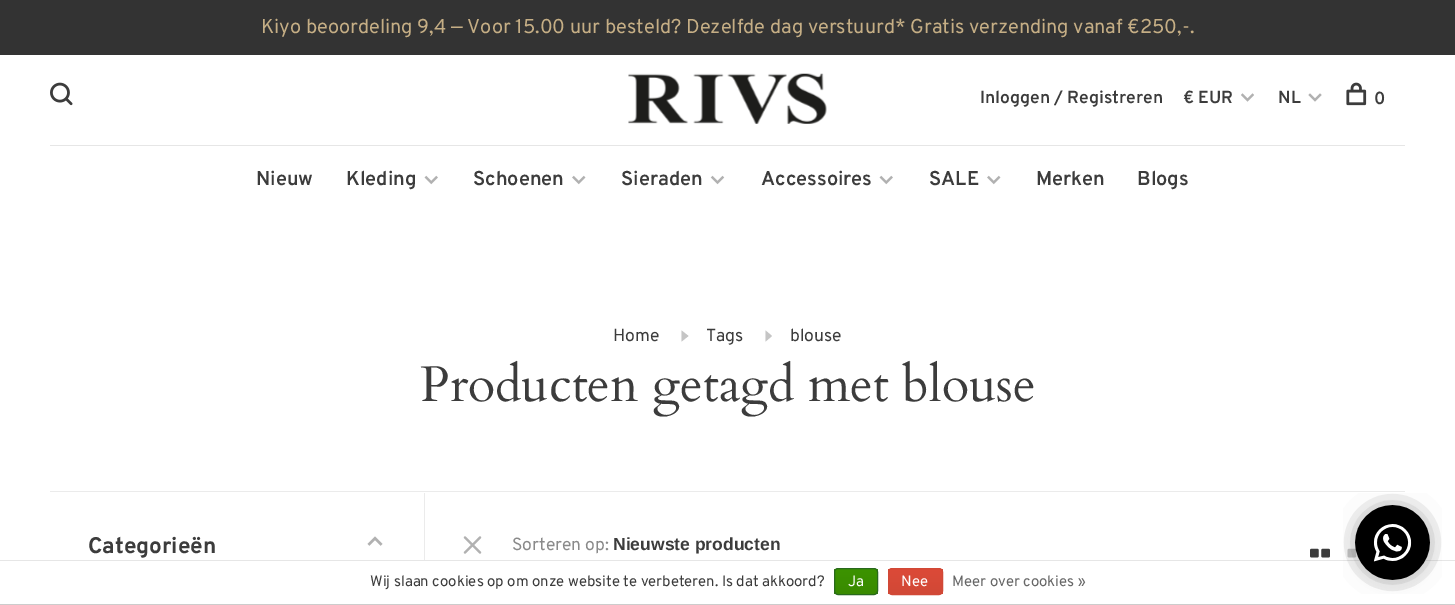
%!PS
<< /PageSize [1455 605] >> setpagedevice
/rgb { 3 { 255 div 3 1 roll } repeat setrgbcolor } def
/font { [ exch dup neg 0 0 3 -1 roll 0 0 ] selectfont } def
/text { moveto show } def
/roundrect { 5 dict begin { /r /h /w /y /x } { exch def } forall
  x r add y moveto x w add y 2 copy h add r arct x w add y h add x 1 index r arct
  x y h add x y r arct x y 2 copy exch w add exch r arct closepath end } def
/picture { 5 dict begin { /h /w /y /x /name } { exch def } forall
  gsave x y translate w h scale
  w h 8 [w 0 0 h 0 0] name (r) file false 3 colorimage grestore end } def
0 605 translate 1 -1 scale
4 setmiterlimit
255 255 255 rgb
0 0 1455 605 rectfill
51 51 51 rgb
0 0 1455 55 rectfill
(img_01.rgb) 50 82 23 24 picture
(img_02.rgb) 628 73 199 51 picture
(img_03.rgb) 1241 93 13 9 picture
(img_04.rgb) 1308 93 14 9 picture
(img_05.rgb) 1346 82 21 24 picture
230 230 230 rgb
50 145 1355 1 rectfill
(img_06.rgb) 424 175 14 10 picture
(img_07.rgb) 572 175 14 10 picture
(img_08.rgb) 710 175 15 10 picture
(img_06.rgb) 879 175 14 10 picture
(img_07.rgb) 987 175 14 10 picture
197 197 197 rgb
681.5 341.5 moveto 7 -5.5 rlineto -7 -5.5 rlineto closepath fill
765.5 341.5 moveto 6.5 -5.5 rlineto -6.5 -5.5 rlineto closepath fill
235 235 235 rgb
50 491 1355 1 rectfill
424 493 1 67 rectfill
(img_09.rgb) 367 536 16 10 picture
(img_10.rgb) 463 536 19 18 picture
(img_11.rgb) 1310 548 20 10 picture
(img_12.rgb) 1347 548 10 10 picture
230 230 230 rgb
0 560 1455 1 rectfill
204 204 204 rgb
0 604 1455 1 rectfill
gsave
834 568 44 27 4 roundrect clip newpath
gsave 834 569 moveto 44 0 rlineto 0 25 rlineto -44 0 rlineto closepath clip newpath
<< /ShadingType 2 /ColorSpace /DeviceRGB /Coords [856 569 856 594] /Extend [true true] /Function << /FunctionType 2 /Domain [0 1] /C0 [0.235 0.576 0] /C1 [0.224 0.541 0] /N 1 >> >> shfill grestore
grestore
41 105 29 rgb
834.5 568.5 43 26 3.5 roundrect stroke
gsave
888 568 55 27 4 roundrect clip newpath
gsave 888 569 moveto 55 0 rlineto 0 25 rlineto -55 0 rlineto closepath clip newpath
<< /ShadingType 2 /ColorSpace /DeviceRGB /Coords [915 569 915 594] /Extend [true true] /Function << /FunctionType 2 /Domain [0 1] /C0 [0.863 0.29 0.22] /C1 [0.82 0.282 0.212] /N 1 >> >> shfill grestore
grestore
209 72 54 rgb
888.5 568.5 54 26 3.5 roundrect stroke
(img_13.rgb) 1343 493 99 101 picture
/Overpass-Regular 20 font
197 174 133 rgb
(Kiyo beoordeling 9,4 — Voor 15.00 uur besteld? Dezelfde dag verstuurd* Gratis verzending vanaf €250,-.) 261 33 text
/Overpass-SemiBold 17.5 font
60 60 60 rgb
(Inloggen / Registreren) 980 103 text
(€ EUR) 1183 103 text
(NL) 1278 103 text
(0) 1374 104 text
/Overpass-SemiBold 20 font
(Nieuw) 256 185 text
(Kleding) 346 185 text
(Schoenen) 473 185 text
(Sieraden) 621 185 text
(Accessoires) 761 185 text
(SALE) 929 185 text
(Merken) 1036 185 text
(Blogs) 1137 185 text
/Overpass-Regular 17.5 font
(Home) 613 341 text
(Tags) 706 341 text
(blouse) 790 341 text
/Cardo-Regular 50 font
(Producten getagd met blouse) 420 401 text
/Overpass-Bold 22.5 font
(Categorieën) 88 553 text
/Overpass-Regular 17.5 font
138 138 138 rgb
(Sorteren op:) 512 550 text
/LiberationSans-Bold 17.5 font
60 60 60 rgb
(Nieuwste producten) 613 550 text
/Overpass-Regular 15 font
(Wij slaan cookies op om onze website te verbeteren. Is dat akkoord?) 370 586 text
255 255 255 rgb
(Ja) 848 586 text
(Nee) 901 586 text
102 102 102 rgb
(Meer over cookies ») 952 586 text
showpage
